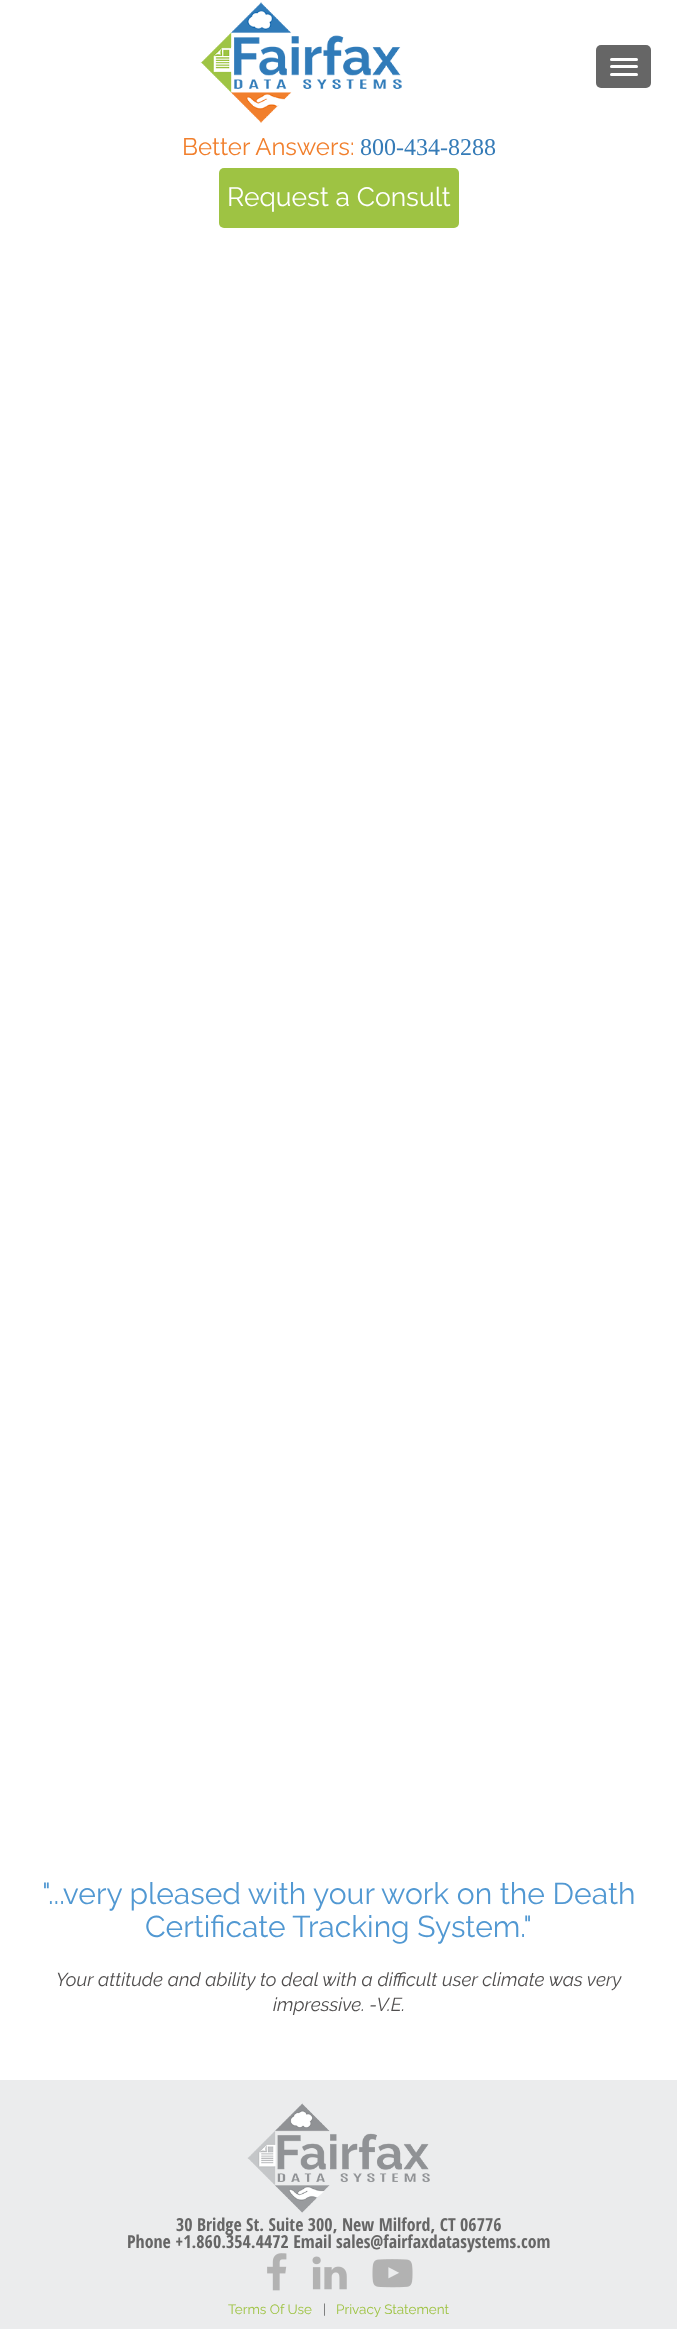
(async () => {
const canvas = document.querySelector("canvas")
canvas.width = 677
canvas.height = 2329
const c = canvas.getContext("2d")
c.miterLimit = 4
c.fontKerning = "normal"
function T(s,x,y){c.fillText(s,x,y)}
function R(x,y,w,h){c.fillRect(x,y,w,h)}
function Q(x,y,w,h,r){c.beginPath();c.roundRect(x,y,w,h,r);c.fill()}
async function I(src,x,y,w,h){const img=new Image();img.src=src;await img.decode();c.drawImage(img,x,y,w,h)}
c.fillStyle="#fff"
R(0,0,677,2329)
await I("1.png",200,2,202,121)
c.fillStyle="#666"
Q(596,45,55,43,5)
c.fillStyle="#fff"
Q(610,58,28,3,1.5)
Q(610,65,28,3,1.5)
Q(610,73,28,3,1.5)
c.font="24px Raleway"
c.fillStyle="#f17f2c"
T("Better Answers:",182,155)
c.font="24px Liberation Serif"
c.fillStyle="#357bb7"
T("800-434-8288",360,155)
c.fillStyle="#9ec343"
Q(219,168,240,60,5)
c.font="26.5px Raleway"
c.fillStyle="#fff"
T("Request a Consult",227,206)
c.font="30px Raleway"
c.fillStyle="#5198d2"
T("\"...very pleased with your work on the Death",42,1904)
T("Certificate Tracking System.\"",145,1937)
c.font="italic 18.75px Raleway"
c.fillStyle="#504e4e"
T("Your attitude and ability to deal with a difficult user climate was very",56,1986)
T("impressive. -V.E.",273,2011)
c.fillStyle="#ebeced"
R(0,2080,677,249)
await I("2.png",247,2103,183,110)
c.font="bold 17.9px Open Sans Condensed"
c.fillStyle="#666"
T("30 Bridge St. Suite 300, New Milford, CT 06776",176,2231)
T("Phone +1.860.354.4472 Email sales@fairfaxdatasystems.com",127,2248)
await I("3.png",267,2253,20,38)
await I("4.png",312,2256,35,34)
await I("5.png",372,2259,41,29)
c.font="13.5px Raleway"
c.fillStyle="#9ec343"
T("Terms Of Use",228,2314)
c.fillStyle="#666"
T("|",323,2314)
c.fillStyle="#9ec343"
T("Privacy Statement",336,2314)
})()
